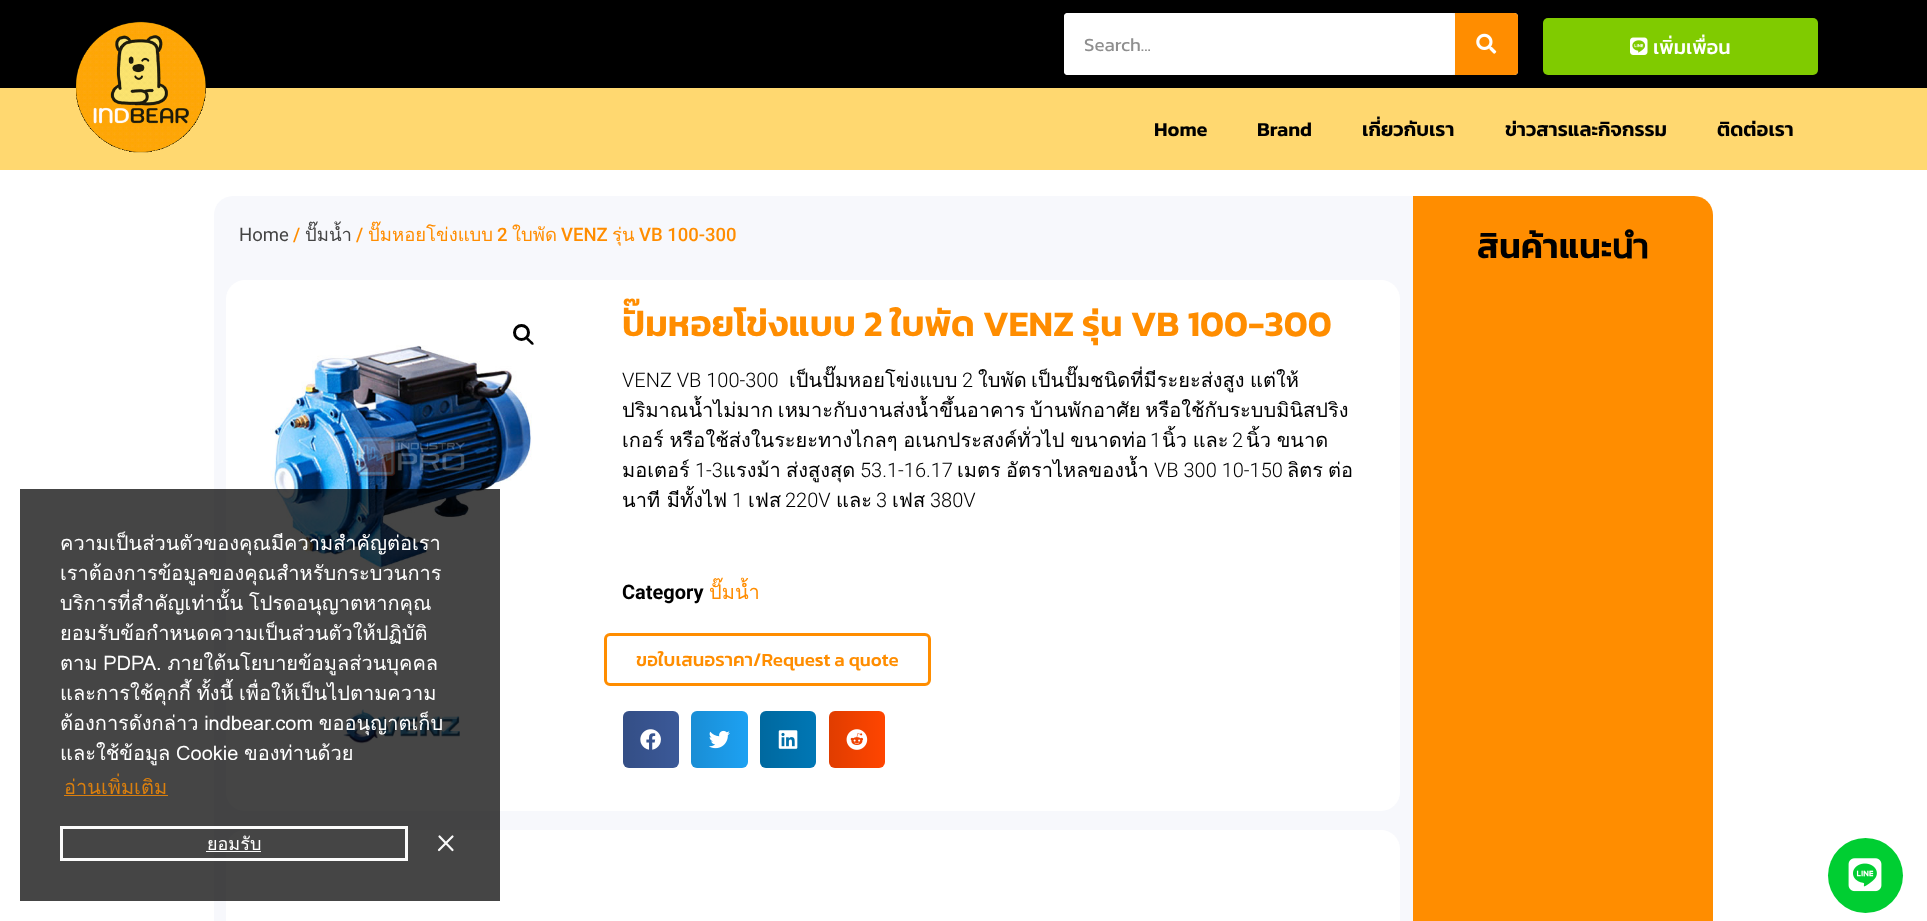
(async () => {
const canvas = document.querySelector("canvas")
canvas.width = 1927
canvas.height = 921
const c = canvas.getContext("2d")
c.miterLimit = 4
c.fontKerning = "normal"
function T(s,x,y){c.fillText(s,x,y)}
function R(x,y,w,h){c.fillRect(x,y,w,h)}
function Q(x,y,w,h,r){c.beginPath();c.roundRect(x,y,w,h,r);c.fill()}
async function I(src,x,y,w,h){const img=new Image();img.src=src;await img.decode();c.drawImage(img,x,y,w,h)}
let gradient, path
c.fillStyle="#fff"
R(0,0,1927,921)
c.fillStyle="#000"
R(0,0,1927,88)
c.fillStyle="#ffd870"
R(0,88,1927,82)
await I("1.png",75,21,131,132)
c.fillStyle="#f1f2f3"
Q(1064,13,454,62,4)
c.fillStyle="#fff"
Q(1064,13,391,62,4)
c.font="18.75px Kanit"
c.fillStyle="#8f8f8f"
T("Search...",1084,51)
c.fillStyle="#ff8d00"
c.beginPath()
c.roundRect(1455,13,63,62,[0,4,4,0])
c.fill()
await I("2.png",1476,33,21,21)
c.fillStyle="#80cb00"
Q(1543,18,275,57,5)
await I("3.png",1630,37,18,18)
c.font="500 20px Kanit"
c.fillStyle="#fff"
T("เพิ่มเพื่อน",1653,54)
c.font="600 20px Kanit"
c.fillStyle="#000"
T("Home",1154,136)
T("Brand",1257,136)
T("เกี่ยวกับเรา",1362,136)
T("ข่าวสารและกิจกรรม",1505,136)
T("ติดต่อเรา",1717,136)
c.fillStyle="#f7f8fc"
path = new Path2D("M233 196h1180v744h-1180c-10.5 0-19-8.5-19-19v-706c0-10.5 8.5-19 19-19z")
c.fill(path)
c.font="18.5px Roboto"
c.fillStyle="#444"
T("Home",239,241)
c.font="500 18.5px Roboto"
c.fillStyle="#ff8d00"
T("/",293,241)
c.font="18.5px Loma"
c.fillStyle="#444"
T("ปั๊มน้ำ",305,241)
c.font="500 18.5px Roboto"
c.fillStyle="#ff8d00"
T("/",356,241)
c.font="18.5px Loma"
T("ปั๊มหอยโข่งแบบ",368,241)
T("ใบพัด",512,241)
T("รุ่น",612,241)
c.font="500 18.5px Roboto"
T("2",497,241)
T("VENZ",561,241)
T("VB 100-300",639,241)
c.fillStyle="#fff"
c.beginPath()
c.roundRect(226,280,353,531,[19,0,0,19])
c.fill()
c.beginPath()
c.arc(521.5,332.5,7,0,7)
c.strokeStyle="#000"
c.lineWidth=3
c.stroke()
c.fillStyle="#000"
path = new Path2D("M526 337.5c1.5-1.5 4 2 4.5 2.5c1 1 4 3 3 4.5c-1.5 1.5-4-2-4.5-2.5c-1-1-4-3-3-4.5z")
c.fill(path)
await I("4.png",270,345,262,225)
await I("5.png",343,709,117,35)
c.fillStyle="#fff"
c.beginPath()
c.roundRect(579,280,821,531,[0,19,19,0])
c.fill()
c.font="600 36.25px Kanit"
c.fillStyle="#ff8d00"
T("ปั๊มหอยโข่งแบบ 2 ใบพัด VENZ รุ่น VB 100-300",622,336)
c.font="300 20px Roboto"
c.fillStyle="#000"
T("VENZ VB 100-300",622,387)
c.font="20px Loma"
T("เป็นปั๊มหอยโข่งแบบ",789,387)
c.font="300 20px Roboto"
T("2",962,387)
c.font="20px Loma"
T("ใบพัด",978,387)
T("เป็นปั๊มชนิดที่มีระยะส่งสูง",1031,387)
T("แต่ให้",1250,387)
c.wordSpacing="-2px"
T("ปริมาณน้ำไม่มาก เหมาะกับงานส่งน้ำขึ้นอาคาร บ้านพักอาศัย หรือใช้กับระบบมินิสปริง",622,417)
c.wordSpacing="-1px"
T("เกอร์ หรือใช้ส่งในระยะทางไกลๆ อเนกประสงค์ทั่วไป ขนาดท่อ",622,447)
c.wordSpacing="0px"
c.font="300 20px Roboto"
T("1",1150,447)
c.wordSpacing="-1px"
c.font="20px Loma"
T("นิ้ว และ",1162,447)
c.wordSpacing="0px"
c.font="300 20px Roboto"
T("2",1232,447)
c.wordSpacing="-1px"
c.font="20px Loma"
T("นิ้ว ขนาด",1246,447)
c.wordSpacing="0px"
T("มอเตอร์",622,477)
c.font="300 20px Roboto"
T("1-3",695,477)
c.font="20px Loma"
T("แรงม้า",723,477)
T("ส่งสูงสุด",786,477)
c.font="300 20px Roboto"
T("53.1-16.17",860,477)
c.font="20px Loma"
T("เมตร",957,477)
T("อัตราไหลของน้ำ",1006,477)
c.font="300 20px Roboto"
T("VB 300 10-150",1154,477)
c.font="20px Loma"
T("ลิตร",1287,477)
T("ต่อ",1328,477)
T("นาที มีทั้งไฟ",622,507)
c.font="300 20px Roboto"
T("1",732,507)
c.font="20px Loma"
T("เฟส",748,507)
c.font="300 20px Roboto"
T("220V",785,507)
c.font="20px Loma"
T("และ",836,507)
c.font="300 20px Roboto"
T("3",876,507)
c.font="20px Loma"
T("เฟส",892,507)
c.font="300 20px Roboto"
T("380V",930,507)
c.font="bold 20px Roboto"
T("Category",622,599)
c.font="20px Loma"
c.fillStyle="#ff8d00"
T("ปั๊มน้ำ",709,599)
c.beginPath()
c.roundRect(605.5,634.5,324,50,4.5)
c.strokeStyle="#ff8d00"
c.stroke()
c.font="500 18.75px Kanit"
T("ขอใบเสนอราคา/Request a quote",636,666)
c.fillStyle="#3b5998"
Q(623,711,56,57,6)
gradient = c.createLinearGradient(623,739,679,739)
gradient.addColorStop(0,"#0000001f")
gradient.addColorStop(1,"#00000000")
c.fillStyle = gradient
Q(623,711,56,57,6)
await I("6.png",640,729,21,21)
c.fillStyle="#1da1f2"
Q(691,711,57,57,6)
gradient = c.createLinearGradient(691,739,748,739)
gradient.addColorStop(0,"#0000001f")
gradient.addColorStop(1,"#00000000")
c.fillStyle = gradient
Q(691,711,57,57,6)
await I("7.png",709,730,21,19)
c.fillStyle="#0077b5"
Q(760,711,56,57,6)
gradient = c.createLinearGradient(760,739,816,739)
gradient.addColorStop(0,"#0000001f")
gradient.addColorStop(1,"#00000000")
c.fillStyle = gradient
Q(760,711,56,57,6)
await I("8.png",778,730,20,19)
c.fillStyle="#ff4500"
Q(829,711,56,57,6)
gradient = c.createLinearGradient(829,739,885,739)
gradient.addColorStop(0,"#0000001f")
gradient.addColorStop(1,"#00000000")
c.fillStyle = gradient
Q(829,711,56,57,6)
await I("9.png",846,729,22,21)
c.fillStyle="#fff"
Q(226,830,1174,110,19)
c.fillStyle="#ff8d00"
path = new Path2D("M1413 196h281c10.5 0 19 8.5 19 19v706c0 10.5-8.5 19-19 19h-281z")
c.fill(path)
c.font="600 35px Kanit"
c.fillStyle="#000"
T("สินค้าแนะนำ",1477,258)
c.fillStyle="#000000ba"
R(20,489,480,412)
c.font="20px Loma"
c.fillStyle="#fff"
T("ความเป็นส่วนตัวของคุณมีความสำคัญต่อเรา",60,550)
T("เราต้องการข้อมูลของคุณสำหรับกระบวนการ",60,580)
c.wordSpacing="-1px"
T("บริการที่สำคัญเท่านั้น โปรดอนุญาตหากคุณ",60,610)
c.wordSpacing="0px"
T("ยอมรับข้อกำหนดความเป็นส่วนตัวให้ปฏิบัติ",60,640)
c.wordSpacing="-1px"
T("ตาม PDPA. ภายใต้นโยบายข้อมูลส่วนบุคคล",60,670)
T("และการใช้คุกกี้ ทั้งนี้ เพื่อให้เป็นไปตามความ",60,700)
T("ต้องการดังกล่าว indbear.com ขออนุญาตเก็บ",60,730)
T("และใช้ข้อมูล Cookie ของท่านด้วย",60,760)
c.wordSpacing="0px"
c.fillStyle="#da7f0e"
T("อ่านเพิ่มเติม",64,794)
R(64,795,104,1)
c.strokeStyle="#fbfbfb"
c.strokeRect(61.5,827.5,345,32)
c.font="18px Loma"
c.fillStyle="#fff"
T("ยอมรับ",207,850)
c.fillStyle="#fbfbfb"
R(206,851,55,1)
path = new Path2D("M439 850l13.5-13.5m0 13.5l-13-13.5")
c.lineWidth=2.2
c.lineCap="round"
c.lineJoin="round"
c.stroke(path)
c.fillStyle="#00ce32"
c.beginPath()
c.arc(1865.5,875.5,37.5,0,7)
c.fill()
await I("10.png",1848,858,34,34)
})()
